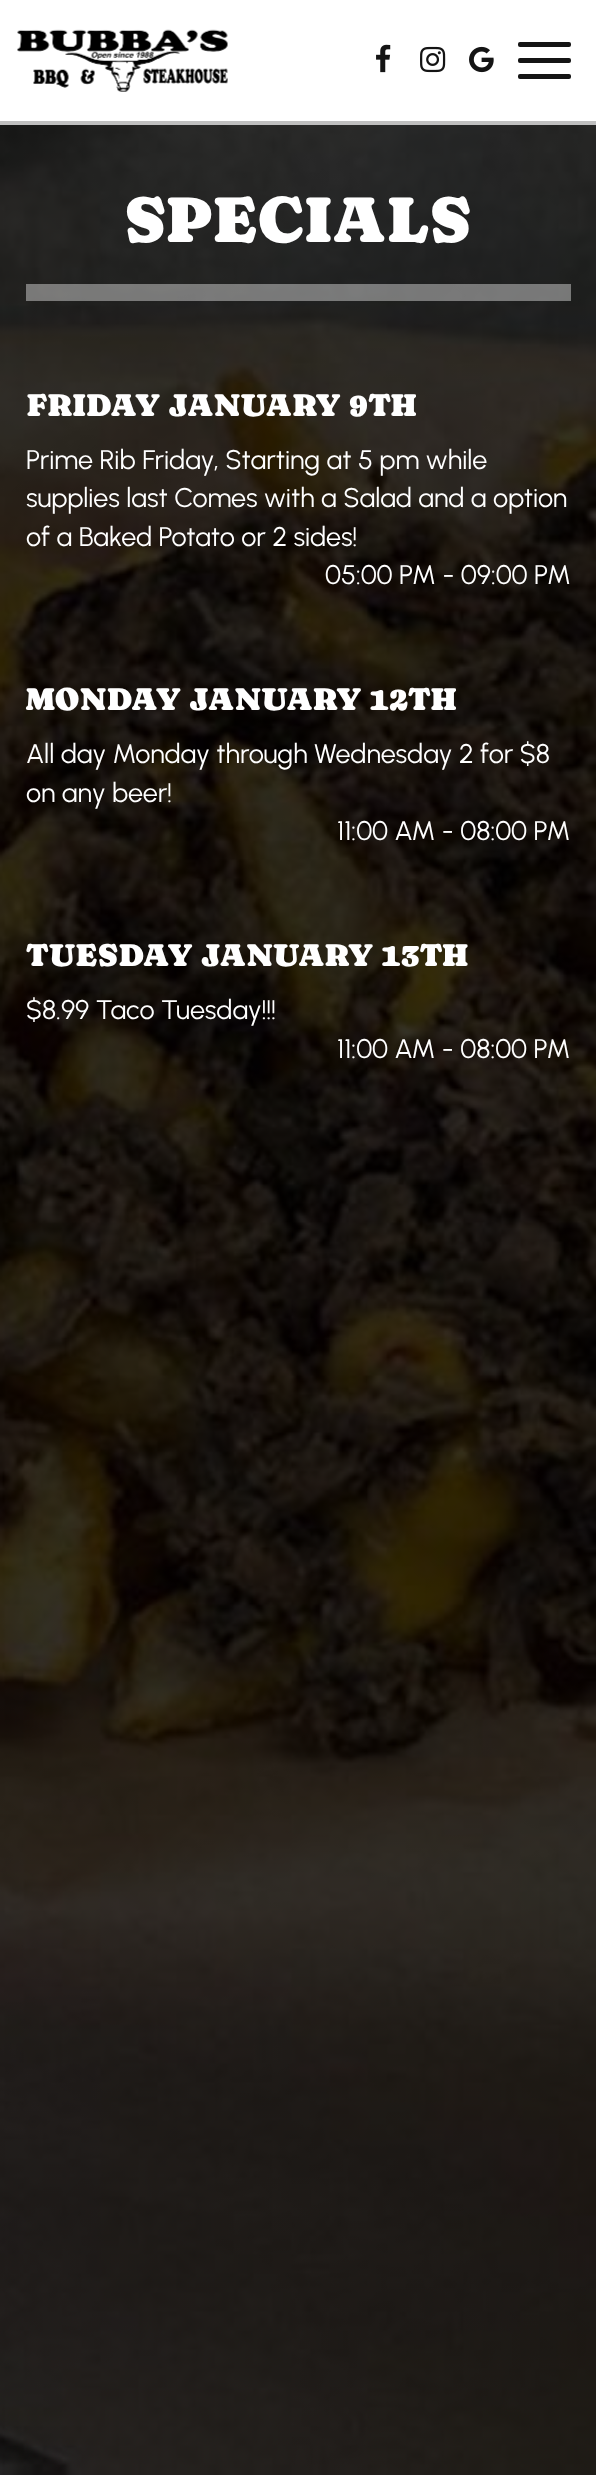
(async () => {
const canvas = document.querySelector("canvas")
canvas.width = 596
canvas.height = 2475
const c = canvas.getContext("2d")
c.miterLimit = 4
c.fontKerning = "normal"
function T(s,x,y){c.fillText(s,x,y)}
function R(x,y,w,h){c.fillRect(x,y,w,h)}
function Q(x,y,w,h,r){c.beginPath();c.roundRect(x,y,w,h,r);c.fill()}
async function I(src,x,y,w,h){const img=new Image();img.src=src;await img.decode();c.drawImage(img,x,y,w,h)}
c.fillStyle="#fff"
R(0,0,596,2475)
await I("1.png",0,125,596,2350)
await I("2.png",17,29,211,63)
c.fillStyle="#bfbfbf"
R(0,121,596,4)
c.fillStyle="#141414"
Q(518,42,53,5,2)
Q(518,58,53,5,2)
Q(518,74,53,5,2)
await I("3.png",376,44,15,29)
await I("4.png",420,46,26,27)
await I("5.png",469,46,25,27)
c.fillStyle="#ffffff66"
R(26,284,545,17)
c.font="66px Caprasimo"
c.fillStyle="#fff"
T("SPECIALS",124,242)
c.font="32.3px Caprasimo"
T("FRIDAY JANUARY 9TH",26,416)
c.font="26.95px Urbanist"
T("Prime Rib Friday, Starting at 5 pm while",26,469)
T("supplies last Comes with a Salad and a option",26,507)
T("of a Baked Potato or 2 sides!",26,546)
T("05:00 PM - 09:00 PM",325,584)
c.font="32.3px Caprasimo"
T("MONDAY JANUARY 12TH",26,710)
c.font="26.95px Urbanist"
T("All day Monday through Wednesday 2 for $8",26,763)
T("on any beer!",26,802)
T("11:00 AM - 08:00 PM",337,840)
c.font="32.3px Caprasimo"
T("TUESDAY JANUARY 13TH",26,966)
c.font="26.95px Urbanist"
T("$8.99 Taco Tuesday!!!",26,1019)
T("11:00 AM - 08:00 PM",337,1058)
})()
